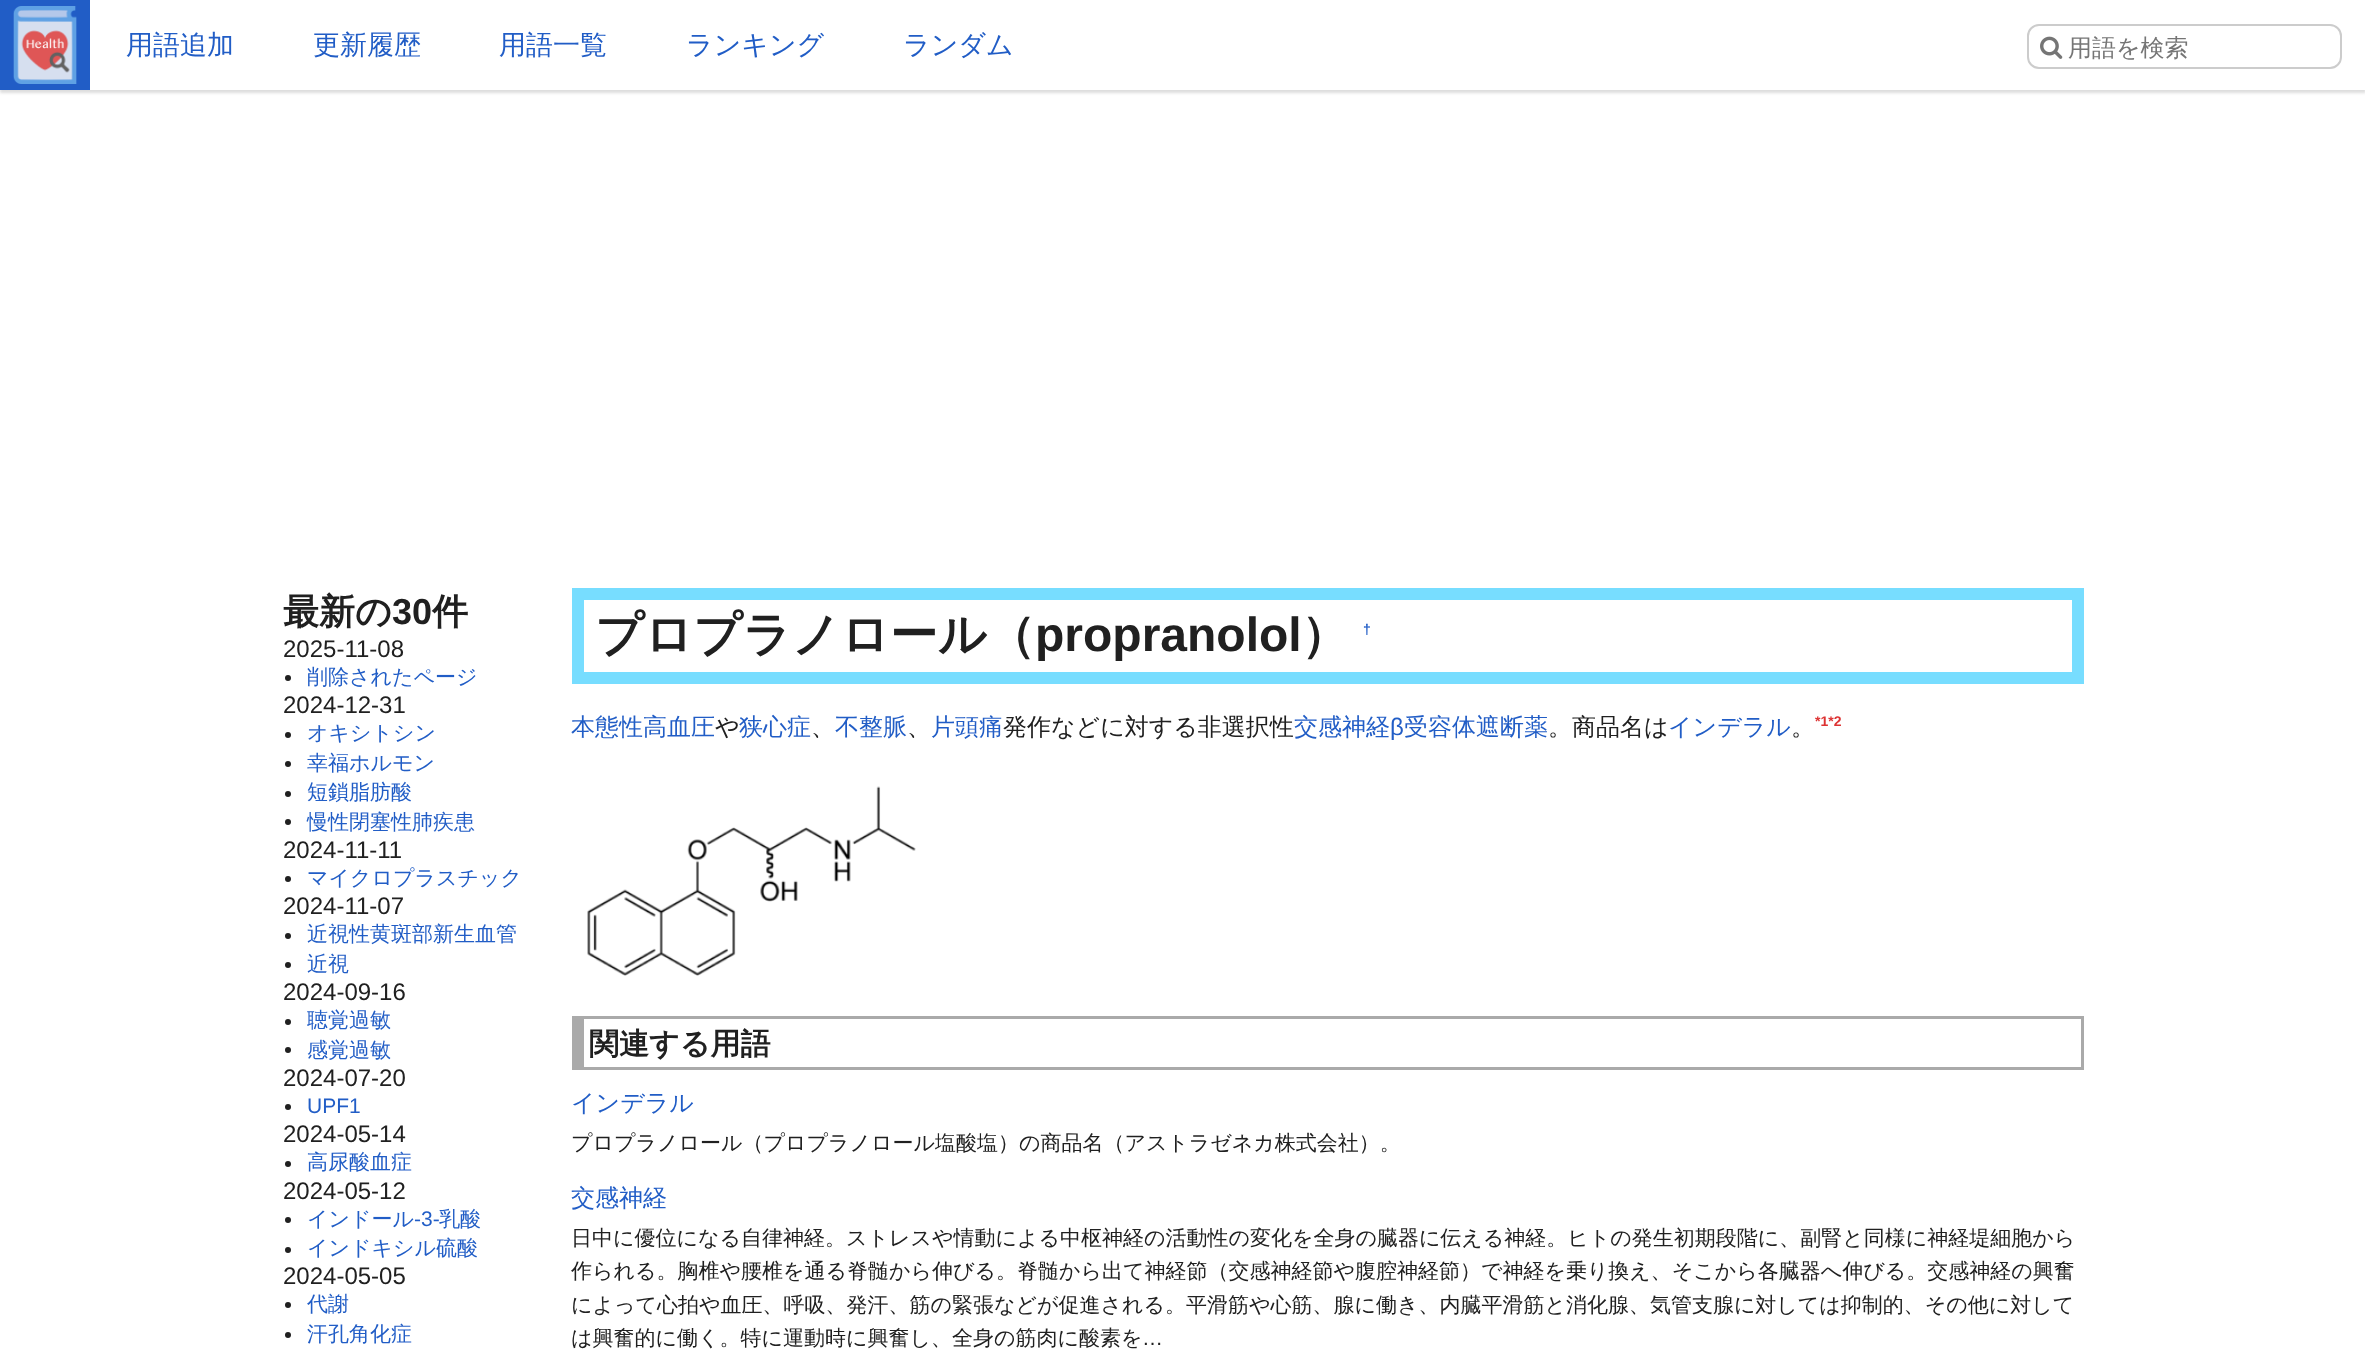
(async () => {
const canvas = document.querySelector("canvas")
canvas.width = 2365
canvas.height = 1359
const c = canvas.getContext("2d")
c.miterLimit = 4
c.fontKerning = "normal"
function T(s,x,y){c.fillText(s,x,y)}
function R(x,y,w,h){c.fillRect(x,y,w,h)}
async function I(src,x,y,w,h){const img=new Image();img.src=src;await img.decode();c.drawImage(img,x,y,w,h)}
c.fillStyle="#fff"
R(0,0,2365,1359)
c.save()
c.beginPath()
c.rect(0,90,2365,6)
c.clip()
c.fillStyle="#ddd"
c.filter="blur(1.5px)"
c.beginPath()
c.rect(0,3,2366,90)
c.fill()
c.filter="none"
c.restore()
c.fillStyle="#215dc6"
R(0,0,90,90)
await I("1.png",13,6,64,78)
c.font="500 27px WenQuanYi Zen Hei"
T("用語追加",126,54)
T("更新履歴",313,54)
T("用語一覧",499,54)
T("ランキング",686,54)
T("ランダム",903,54)
c.beginPath()
c.roundRect(2028,25,313,43,11)
c.strokeStyle="#ccc"
c.lineWidth=2
c.stroke()
await I("2.png",2040,36,23,23)
c.font="500 24px WenQuanYi Zen Hei"
c.fillStyle="#757575"
T("用語を検索",2068,56)
c.font="bold 36px WenQuanYi Zen Hei"
c.fillStyle="#202020"
T("最新の",283,624)
c.font="bold 36px Liberation Sans"
T("30",392,624)
c.font="bold 36px WenQuanYi Zen Hei"
T("件",432,624)
c.font="24px Liberation Sans"
T("2025-11-08",283,657)
c.beginPath()
c.arc(288,678,3,0,7)
c.fill()
c.font="500 21px WenQuanYi Zen Hei"
c.fillStyle="#215dc6"
T("削除されたページ",307,684)
c.font="24px Liberation Sans"
c.fillStyle="#202020"
T("2024-12-31",283,713)
c.beginPath()
c.arc(288,735,3,0,7)
c.fill()
c.font="500 21px WenQuanYi Zen Hei"
c.fillStyle="#215dc6"
T("オキシトシン",307,740)
c.fillStyle="#202020"
c.beginPath()
c.arc(288,764,3,0,7)
c.fill()
c.fillStyle="#215dc6"
T("幸福ホルモン",307,770)
c.fillStyle="#202020"
c.beginPath()
c.arc(288,794,3,0,7)
c.fill()
c.fillStyle="#215dc6"
T("短鎖脂肪酸",307,799)
c.fillStyle="#202020"
c.beginPath()
c.arc(288,822,3,0,7)
c.fill()
c.fillStyle="#215dc6"
T("慢性閉塞性肺疾患",307,829)
c.font="24px Liberation Sans"
c.fillStyle="#202020"
T("2024-11-11",283,858)
c.beginPath()
c.arc(288,879,3,0,7)
c.fill()
c.font="500 21px WenQuanYi Zen Hei"
c.fillStyle="#215dc6"
T("マイクロプラスチック",307,885)
c.font="24px Liberation Sans"
c.fillStyle="#202020"
T("2024-11-07",283,914)
c.beginPath()
c.arc(288,936,3,0,7)
c.fill()
c.font="500 21px WenQuanYi Zen Hei"
c.fillStyle="#215dc6"
T("近視性黄斑部新生血管",307,941)
c.fillStyle="#202020"
c.beginPath()
c.arc(288,965,3,0,7)
c.fill()
c.fillStyle="#215dc6"
T("近視",307,971)
c.font="24px Liberation Sans"
c.fillStyle="#202020"
T("2024-09-16",283,1000)
c.beginPath()
c.arc(288,1022,3,0,7)
c.fill()
c.font="500 21px WenQuanYi Zen Hei"
c.fillStyle="#215dc6"
T("聴覚過敏",307,1027)
c.fillStyle="#202020"
c.beginPath()
c.arc(288,1050,3,0,7)
c.fill()
c.fillStyle="#215dc6"
T("感覚過敏",307,1057)
c.font="24px Liberation Sans"
c.fillStyle="#202020"
T("2024-07-20",283,1086)
c.beginPath()
c.arc(288,1107,3,0,7)
c.fill()
c.font="21px Liberation Sans"
c.fillStyle="#215dc6"
T("UPF1",307,1113)
c.font="24px Liberation Sans"
c.fillStyle="#202020"
T("2024-05-14",283,1142)
c.beginPath()
c.arc(288,1164,3,0,7)
c.fill()
c.font="500 21px WenQuanYi Zen Hei"
c.fillStyle="#215dc6"
T("高尿酸血症",307,1169)
c.font="24px Liberation Sans"
c.fillStyle="#202020"
T("2024-05-12",283,1199)
c.beginPath()
c.arc(288,1220,3,0,7)
c.fill()
c.font="500 21px WenQuanYi Zen Hei"
c.fillStyle="#215dc6"
T("インドール",307,1226)
c.font="21px Liberation Sans"
T("-3-",414,1226)
c.font="500 21px WenQuanYi Zen Hei"
T("乳酸",439,1226)
c.fillStyle="#202020"
c.beginPath()
c.arc(288,1250,3,0,7)
c.fill()
c.fillStyle="#215dc6"
T("インドキシル硫酸",307,1255)
c.font="24px Liberation Sans"
c.fillStyle="#202020"
T("2024-05-05",283,1284)
c.beginPath()
c.arc(288,1305,3,0,7)
c.fill()
c.font="500 21px WenQuanYi Zen Hei"
c.fillStyle="#215dc6"
T("代謝",307,1311)
c.fillStyle="#202020"
c.beginPath()
c.arc(288,1335,3,0,7)
c.fill()
c.fillStyle="#215dc6"
T("汗孔角化症",307,1341)
c.strokeStyle="#7df"
c.lineWidth=12
c.strokeRect(578,594,1500,84)
c.font="bold 48px WenQuanYi Zen Hei"
c.fillStyle="#202020"
T("プロプラノロール（",595,651)
c.font="bold 48px Liberation Sans"
T("propranolol",1035,651)
c.font="bold 48px WenQuanYi Zen Hei"
T("）",1301,651)
c.font="bold 14px Liberation Sans"
c.fillStyle="#215dc6"
T("†",1363,634)
c.font="500 24px WenQuanYi Zen Hei"
T("本態性高血圧",571,735)
c.fillStyle="#202020"
T("や",715,735)
c.fillStyle="#215dc6"
T("狭心症",739,735)
c.fillStyle="#202020"
T("、",811,735)
c.fillStyle="#215dc6"
T("不整脈",835,735)
c.fillStyle="#202020"
T("、",907,735)
c.fillStyle="#215dc6"
T("片頭痛",931,735)
c.fillStyle="#202020"
T("発作などに対する非選択性",1003,735)
c.fillStyle="#215dc6"
T("交感神経",1294,735)
c.font="24px Liberation Sans"
T("β",1390,735)
c.font="500 24px WenQuanYi Zen Hei"
T("受容体遮断薬",1404,735)
c.fillStyle="#202020"
T("。商品名は",1548,735)
c.fillStyle="#215dc6"
T("インデラル",1668,735)
c.fillStyle="#202020"
T("。",1791,735)
c.font="bold 14px Liberation Sans"
c.fillStyle="#d33"
T("*1*2",1815,726)
await I("3.png",587,786,329,190)
c.fillStyle="#aaa"
R(584,1016,1500,3)
R(2081,1016,3,54)
R(584,1067,1500,3)
R(572,1016,12,54)
c.font="bold 30px WenQuanYi Zen Hei"
c.fillStyle="#202020"
T("関連する用語",589,1054)
c.font="500 24px WenQuanYi Zen Hei"
c.fillStyle="#215dc6"
T("インデラル",571,1111)
c.font="500 21px WenQuanYi Zen Hei"
c.fillStyle="#202020"
T("プロプラノロール（プロプラノロール塩酸塩）の商品名（アストラゼネカ株式会社）。",571,1150)
c.font="500 24px WenQuanYi Zen Hei"
c.fillStyle="#215dc6"
T("交感神経",571,1206)
c.font="500 21px WenQuanYi Zen Hei"
c.fillStyle="#202020"
T("日中に優位になる自律神経。ストレスや情動による中枢神経の活動性の変化を全身の臓器に伝える神経。ヒトの発生初期段階に、副腎と同様に神経堤細胞から",571,1245)
T("作られる。胸椎や腰椎を通る脊髄から伸びる。脊髄から出て神経節（交感神経節や腹腔神経節）で神経を乗り換え、そこから各臓器へ伸びる。交感神経の興奮",571,1278)
T("によって心拍や血圧、呼吸、発汗、筋の緊張などが促進される。平滑筋や心筋、腺に働き、内臓平滑筋と消化腺、気管支腺に対しては抑制的、その他に対して",571,1312)
T("は興奮的に働く。特に運動時に興奮し、全身の筋肉に酸素を",571,1345)
c.font="21px Liberation Sans"
T("…",1142,1345)
})()
